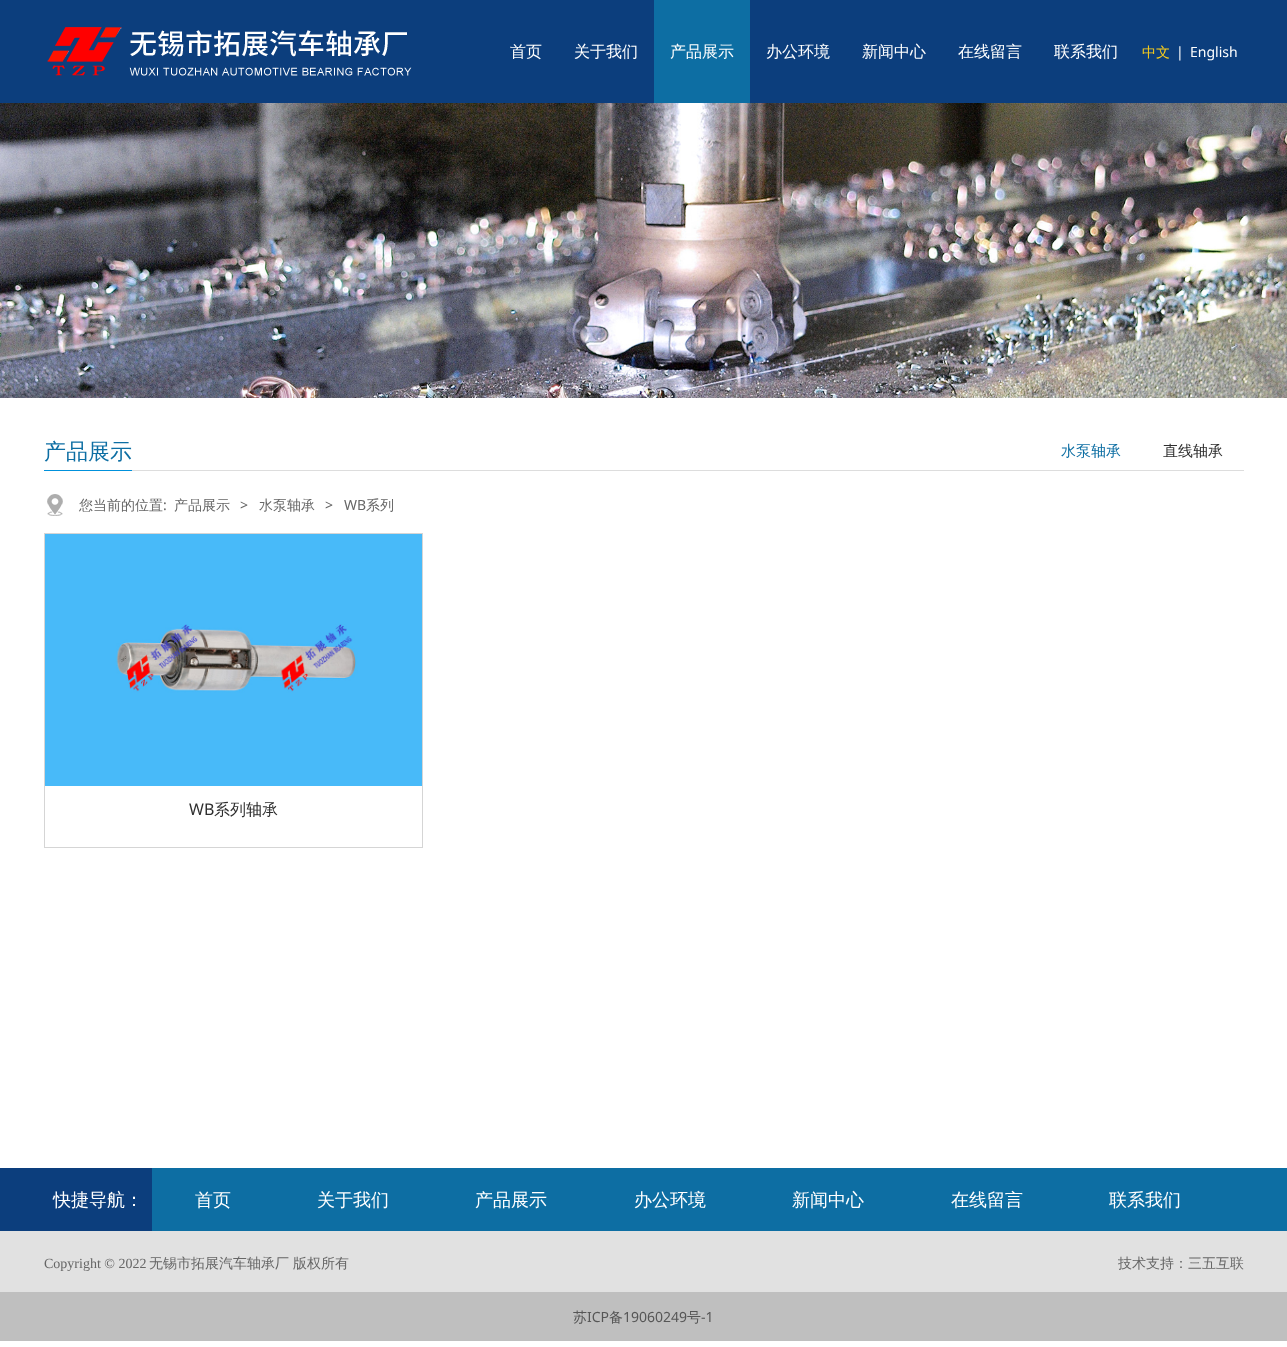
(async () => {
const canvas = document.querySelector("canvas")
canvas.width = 1287
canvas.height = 1347
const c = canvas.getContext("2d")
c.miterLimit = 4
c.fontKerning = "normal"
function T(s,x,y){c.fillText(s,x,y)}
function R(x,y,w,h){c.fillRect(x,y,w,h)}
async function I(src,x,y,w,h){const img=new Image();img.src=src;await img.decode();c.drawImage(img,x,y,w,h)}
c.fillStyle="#fff"
R(0,0,1287,1347)
c.fillStyle="#0c3e7d"
R(0,0,1287,103)
await I("1.png",47,27,365,49)
c.font="500 16px WenQuanYi Zen Hei"
c.fillStyle="#fff"
T("首页",510,57)
T("关于我们",574,57)
c.fillStyle="#0d6ea3"
R(654,0,96,103)
c.fillStyle="#fff"
T("产品展示",670,57)
T("办公环境",766,57)
T("新闻中心",862,57)
T("在线留言",958,57)
T("联系我们",1054,57)
c.font="500 14px WenQuanYi Zen Hei"
c.fillStyle="#fbce1a"
T("中文",1142,57)
c.font="14px Noto Sans"
c.fillStyle="#fff"
T("|",1176,57)
T("English",1190,57)
await I("2.png",0,103,1287,295)
c.fillStyle="#ddd"
R(132,470,1112,1)
c.fillStyle="#0091dc"
R(44,470,88,1)
c.font="500 22px WenQuanYi Zen Hei"
c.fillStyle="#0d6ea3"
T("产品展示",44,459)
c.font="500 15px WenQuanYi Zen Hei"
T("水泵轴承",1061,456)
c.fillStyle="#2f2f2f"
T("直线轴承",1163,456)
await I("3.png",47,494,16,22)
c.font="500 14px WenQuanYi Zen Hei"
c.fillStyle="#666"
T("您当前的位置",79,510)
c.font="14px Noto Sans"
T(":",163,510)
c.font="500 14px WenQuanYi Zen Hei"
T("产品展示",174,510)
c.font="14px Noto Sans"
T(">",240,510)
c.font="500 14px WenQuanYi Zen Hei"
T("水泵轴承",259,510)
c.font="14px Noto Sans"
T(">",325,510)
T("WB",344,510)
c.font="500 14px WenQuanYi Zen Hei"
T("系列",366,510)
c.strokeStyle="#d5d5d5"
c.strokeRect(44.5,533.5,378,314)
await I("4.png",45,534,377,252)
c.font="16px Noto Sans"
c.fillStyle="#2f2f2f"
T("WB",189,815)
c.font="500 16px WenQuanYi Zen Hei"
T("系列轴承",214,815)
c.fillStyle="#e1e1e1"
R(0,1231,1287,61)
c.fillStyle="#0c3e7d"
R(0,1168,152,63)
c.fillStyle="#0d6ea3"
R(152,1168,1135,63)
c.font="500 18px WenQuanYi Zen Hei"
c.fillStyle="#fff"
T("快捷导航：",53,1206)
T("首页",195,1206)
T("关于我们",317,1206)
T("产品展示",475,1206)
T("办公环境",634,1206)
T("新闻中心",792,1206)
T("在线留言",951,1206)
T("联系我们",1109,1206)
c.font="14px Liberation Serif"
c.fillStyle="#666"
T("Copyright © 2022",44,1268)
c.font="500 14px WenQuanYi Zen Hei"
T("无锡市拓展汽车轴承厂",149,1268)
T("版权所有",293,1268)
T("技术支持：三五互联",1118,1268)
c.fillStyle="#bfbfbf"
R(0,1292,1287,49)
c.fillStyle="#565656"
T("苏",573,1322)
c.font="14px Noto Sans"
T("ICP",587,1322)
c.font="500 14px WenQuanYi Zen Hei"
T("备",609,1322)
c.font="14px Noto Sans"
T("19060249",623,1322)
c.font="500 14px WenQuanYi Zen Hei"
T("号",687,1322)
c.font="14px Noto Sans"
T("-1",701,1322)
})()
